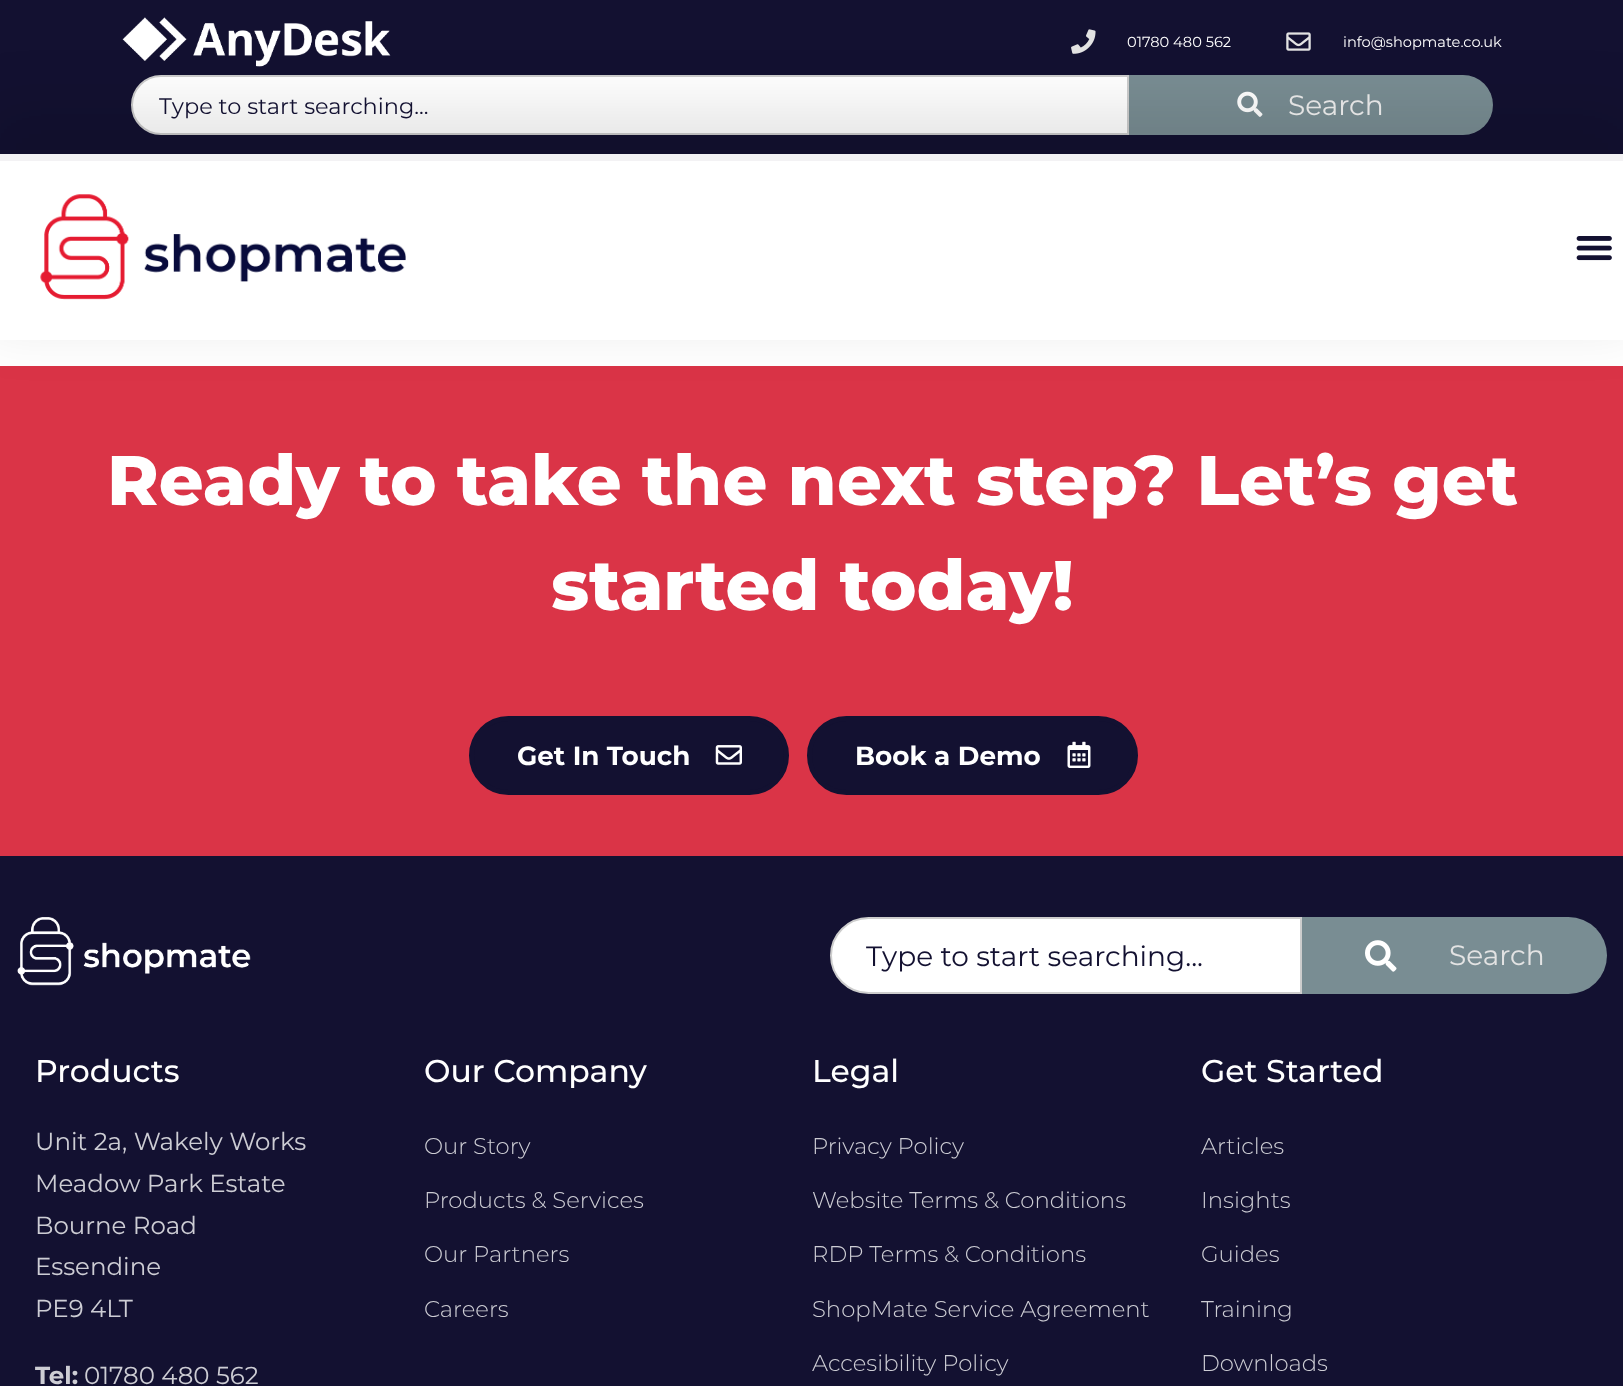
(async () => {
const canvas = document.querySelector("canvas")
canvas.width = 1623
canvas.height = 1386
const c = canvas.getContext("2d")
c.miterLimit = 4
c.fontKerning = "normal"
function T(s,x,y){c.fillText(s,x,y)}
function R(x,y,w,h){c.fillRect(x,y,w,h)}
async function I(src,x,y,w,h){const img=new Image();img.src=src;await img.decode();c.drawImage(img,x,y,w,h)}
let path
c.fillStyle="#fff"
R(0,0,1623,1386)
c.fillStyle="#131131"
R(0,0,1623,161)
await I("3.png",122,17,269,50)
await I("4.png",1071,29,25,25)
await I("5.png",1286,32,25,19)
c.fillStyle="#fff"
c.beginPath()
c.roundRect(132,76,996,58,[29,0,0,29])
c.fill()
c.strokeStyle="#cdcdcd"
c.lineWidth=2
c.stroke()
c.fillStyle="#798d93"
c.beginPath()
c.roundRect(1129,75,364,60,[0,30,30,0])
c.fill()
await I("6.png",1237,91,26,26)
c.fillStyle="#da3447"
R(0,366,1623,490)
c.save()
path = new Path2D("M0 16h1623v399h-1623zm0 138h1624v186h-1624z")
c.clip(path,"evenodd")
c.fillStyle="#0000001a"
c.filter="blur(30px)"
c.beginPath()
c.rect(-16,107,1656,217)
c.fill()
c.filter="none"
c.restore()
c.fillStyle="#fffffff2"
R(0,154,1623,186)
await I("1.png",40,194,366,106)
await I("2.png",1576,236,36,25)
c.font="14.6px Montserrat"
c.fillStyle="#fff"
T("01780 480 562",1127,47)
T("info@shopmate.co.uk",1343,47)
c.font="22.4px Montserrat"
c.fillStyle="#131131"
T("Type to start searching...",159,114)
c.font="28px Montserrat"
c.fillStyle="#e3e3e3"
T("Search",1288,115)
c.font="800 70px Montserrat"
c.fillStyle="#fff"
T("Ready to take the next step? Let’s get",107,505)
T("started today!",551,610)
c.fillStyle="#131131"
c.beginPath()
c.roundRect(471.5,718.5,315,74,37)
c.fill()
c.strokeStyle="#131131"
c.lineWidth=5
c.stroke()
c.font="bold 26.25px Montserrat"
c.fillStyle="#fff"
T("Get In Touch",517,765)
await I("7.png",715,745,27,20)
c.fillStyle="#131131"
c.beginPath()
c.roundRect(809.5,718.5,326,74,37)
c.fill()
c.stroke()
c.fillStyle="#fff"
T("Book a Demo",855,765)
await I("8.png",1067,741,24,27)
c.fillStyle="#131131"
R(0,856,1623,530)
await I("9.png",17,917,234,69)
c.fillStyle="#fff"
c.beginPath()
c.roundRect(831,918,470,75,[37.5,0,0,37.5])
c.fill()
c.strokeStyle="#cdcdcd"
c.lineWidth=2
c.stroke()
c.font="28px Montserrat"
c.fillStyle="#131131"
T("Type to start searching...",866,966)
c.fillStyle="#798d93"
c.beginPath()
c.roundRect(1302,917,305,77,[0,38.5,38.5,0])
c.fill()
await I("10.png",1365,940,32,32)
c.fillStyle="#e3e3e3"
T("Search",1449,965)
c.font="500 31.5px Montserrat"
c.fillStyle="#fff"
T("Products",35,1082)
c.font="24.5px Montserrat"
c.fillStyle="#cdcdd4"
T("Unit 2a, Wakely Works",35,1150)
T("Meadow Park Estate",35,1192)
T("Bourne Road",35,1234)
T("Essendine",35,1275)
T("PE9 4LT",35,1317)
c.font="bold 24.5px Montserrat"
T("Tel:",35,1384)
c.font="24.5px Montserrat"
T("01780 480 562",84,1384)
c.font="500 31.5px Montserrat"
c.fillStyle="#fff"
T("Our Company",424,1082)
c.font="300 22.75px Montserrat"
c.fillStyle="#cdcdd4"
T("Our Story",424,1154)
T("Products & Services",424,1208)
T("Our Partners",424,1262)
T("Careers",424,1317)
c.font="500 31.5px Montserrat"
c.fillStyle="#fff"
T("Legal",812,1082)
c.font="300 22.75px Montserrat"
c.fillStyle="#cdcdd4"
T("Privacy Policy",812,1154)
T("Website Terms & Conditions",812,1208)
T("RDP Terms & Conditions",812,1262)
T("ShopMate Service Agreement",812,1317)
T("Accesibility Policy",812,1371)
c.font="500 31.5px Montserrat"
c.fillStyle="#fff"
T("Get Started",1201,1082)
c.font="300 22.75px Montserrat"
c.fillStyle="#cdcdd4"
T("Articles",1201,1154)
T("Insights",1201,1208)
T("Guides",1201,1262)
T("Training",1201,1317)
T("Downloads",1201,1371)
})()
